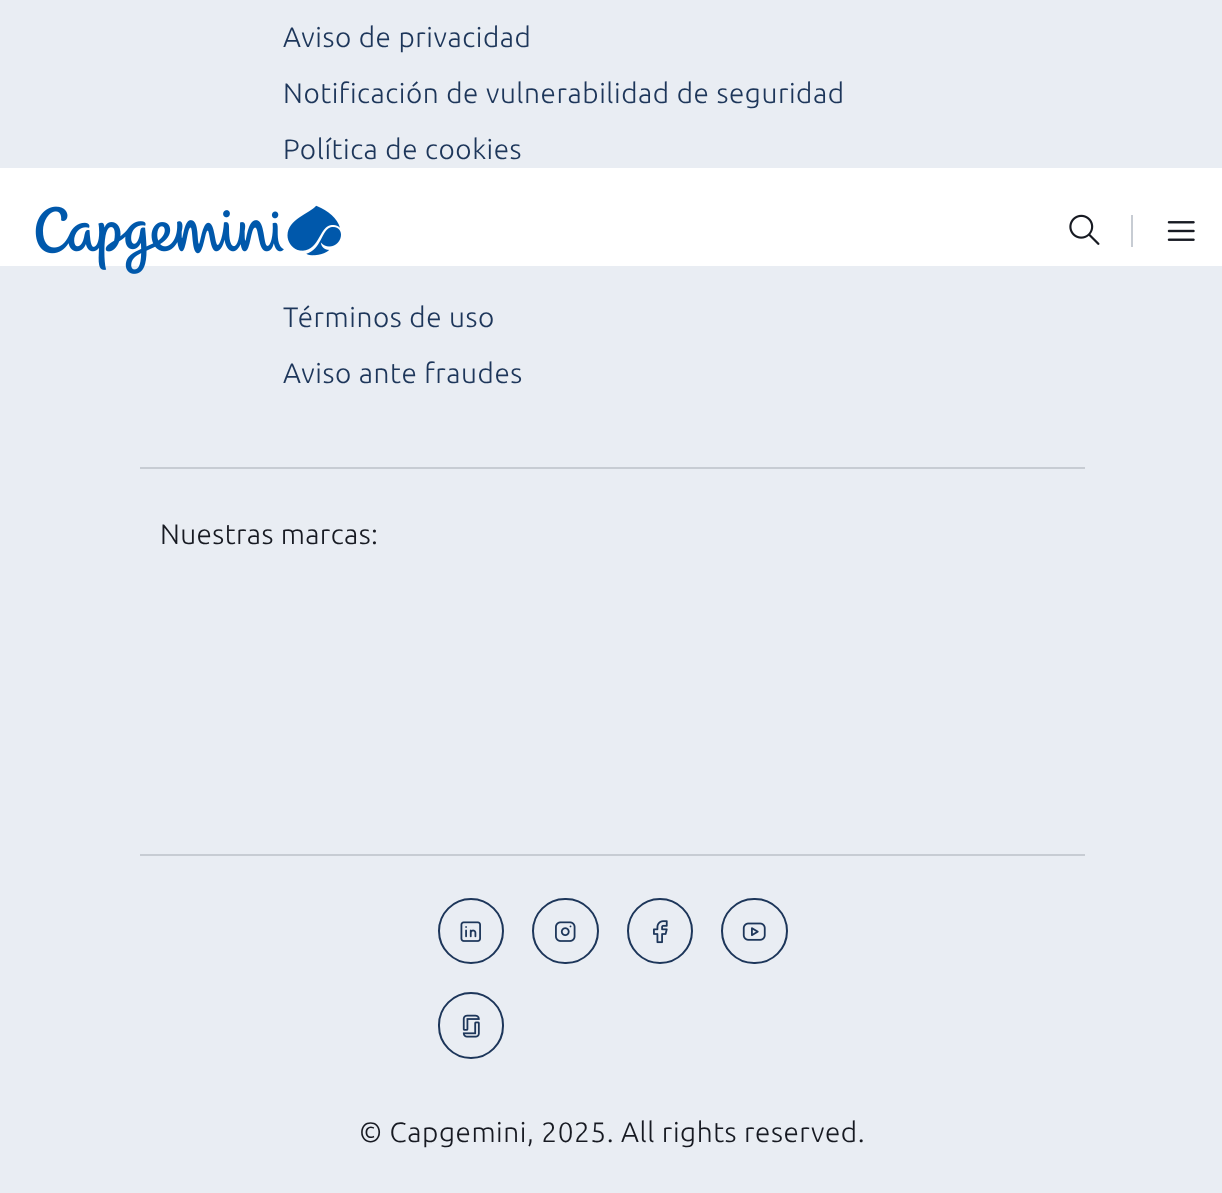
(async () => {
const canvas = document.querySelector("canvas")
canvas.width = 1222
canvas.height = 1193
const c = canvas.getContext("2d")
c.miterLimit = 4
c.fontKerning = "normal"
function T(s,x,y){c.fillText(s,x,y)}
function R(x,y,w,h){c.fillRect(x,y,w,h)}
async function I(src,x,y,w,h){const img=new Image();img.src=src;await img.decode();c.drawImage(img,x,y,w,h)}
c.fillStyle="#e9edf3"
R(0,0,1222,1193)
c.letterSpacing="0.55px"
c.font="300 28px Ubuntu"
c.fillStyle="#1d365a"
T("Aviso de privacidad",283,47)
T("Notificación de vulnerabilidad de seguridad",283,103)
T("Política de cookies",283,159)
T("Términos de uso",283,327)
T("Aviso ante fraudes",283,383)
c.fillStyle="#c7ccd3"
R(140,467,945,2)
R(140,854,945,2)
c.letterSpacing="0.4px"
c.fillStyle="#171a22"
T("Nuestras marcas:",160,544)
c.beginPath()
c.arc(471,931,32,0,7)
c.strokeStyle="#1d365a"
c.lineWidth=2
c.stroke()
await I("1.png",460,921,21,21)
c.beginPath()
c.roundRect(533,899,65,64,32)
c.stroke()
await I("2.png",555,921,21,21)
c.beginPath()
c.arc(660,931,32,0,7)
c.stroke()
await I("3.png",653,920,15,24)
c.beginPath()
c.roundRect(722,899,65,64,32)
c.stroke()
await I("4.png",742,922,24,19)
c.beginPath()
c.roundRect(439,993,64,65,32)
c.stroke()
await I("5.png",462,1014,18,24)
c.letterSpacing="0.55px"
T("© Capgemini, 2025. All rights reserved.",359,1142)
c.fillStyle="#fff"
R(0,168,1222,98)
await I("6.png",35,205,306,69)
c.fillStyle="#c7ccd3"
R(1131,215,2,32)
await I("7.png",1069,214,31,31)
await I("8.png",1167,221,28,20)
})()
